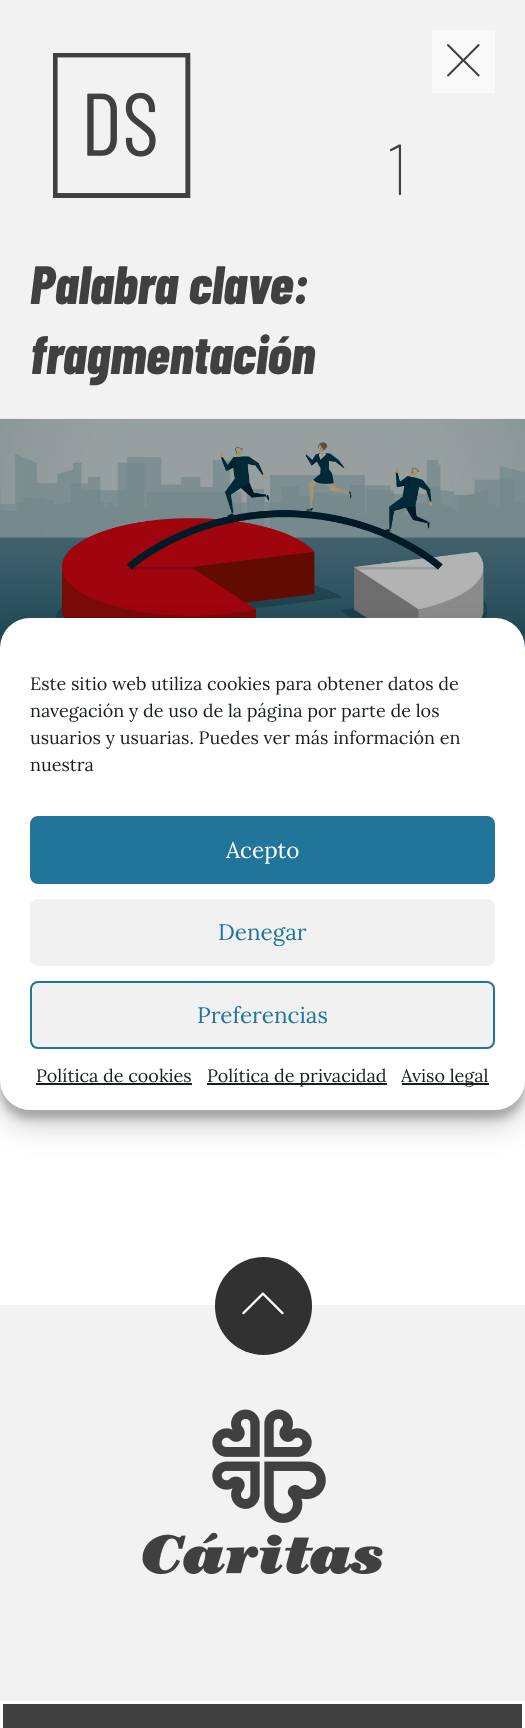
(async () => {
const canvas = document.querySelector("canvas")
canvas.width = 525
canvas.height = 1728
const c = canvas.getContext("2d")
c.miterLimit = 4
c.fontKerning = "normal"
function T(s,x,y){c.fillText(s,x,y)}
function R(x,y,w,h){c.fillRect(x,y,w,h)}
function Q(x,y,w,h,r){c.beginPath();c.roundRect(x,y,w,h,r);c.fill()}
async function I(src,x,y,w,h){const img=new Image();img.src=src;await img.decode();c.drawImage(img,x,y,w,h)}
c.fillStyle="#fff"
R(0,0,525,1728)
c.fillStyle="#f2f2f2"
R(0,0,525,419)
c.fillStyle="#f9f9f9"
R(432,30,63,63)
await I("1.png",447,44,33,33)
await I("2.png",53,53,138,145)
c.font="100 72px Barlow Condensed"
c.fillStyle="#404040"
T("1",389,195)
c.font="italic 800 54px Barlow Condensed"
T("Palabra clave:",30,304)
T("fragmentación",30,374)
await I("3.png",0,418,525,230)
c.fillStyle="#f2f2f2"
R(0,1305,525,396)
c.fillStyle="#313131"
Q(215,1257,97,98,48.5)
await I("4.png",242,1292,42,23)
await I("5.png",142,1409,241,166)
c.fillStyle="#404040"
R(3,1704,519,24)
c.fillStyle="#0000003b"
c.filter="blur(4.5px)"
c.beginPath()
c.roundRect(0,627,525,492,30)
c.fill()
c.filter="none"
c.fillStyle="#00000030"
c.filter="blur(15px)"
c.beginPath()
c.roundRect(0,633,525,492,30)
c.fill()
c.filter="none"
c.fillStyle="#fff"
Q(0,618,525,492,30)
c.font="18px Lora"
c.fillStyle="#191e23"
T("Este sitio web utiliza cookies para obtener datos de",30,690)
T("navegación y de uso de la página por parte de los",30,717)
T("usuarios y usuarias. Puedes ver más información en",30,744)
T("nuestra",30,771)
c.fillStyle="#21759b"
c.beginPath()
c.roundRect(31,817,463,66,7)
c.fill()
c.strokeStyle="#21759b"
c.lineWidth=2
c.stroke()
c.font="22.5px Lora"
c.fillStyle="#fff"
T("Acepto",226,858)
c.fillStyle="#f1f1f1"
c.beginPath()
c.roundRect(31,900,463,65,7)
c.fill()
c.strokeStyle="#f1f1f1"
c.stroke()
c.fillStyle="#21759b"
T("Denegar",218,940)
c.fillStyle="#f1f1f1"
c.beginPath()
c.roundRect(31,982,463,66,7)
c.fill()
c.strokeStyle="#21759b"
c.stroke()
c.fillStyle="#21759b"
T("Preferencias",197,1023)
c.font="18px Lora"
c.fillStyle="#191e23"
T("Política de cookies",36,1082)
R(36,1083,156,2)
R(207,1083,180,2)
T("Política de privacidad",207,1082)
R(402,1083,87,2)
T("Aviso legal",401,1082)
})()
